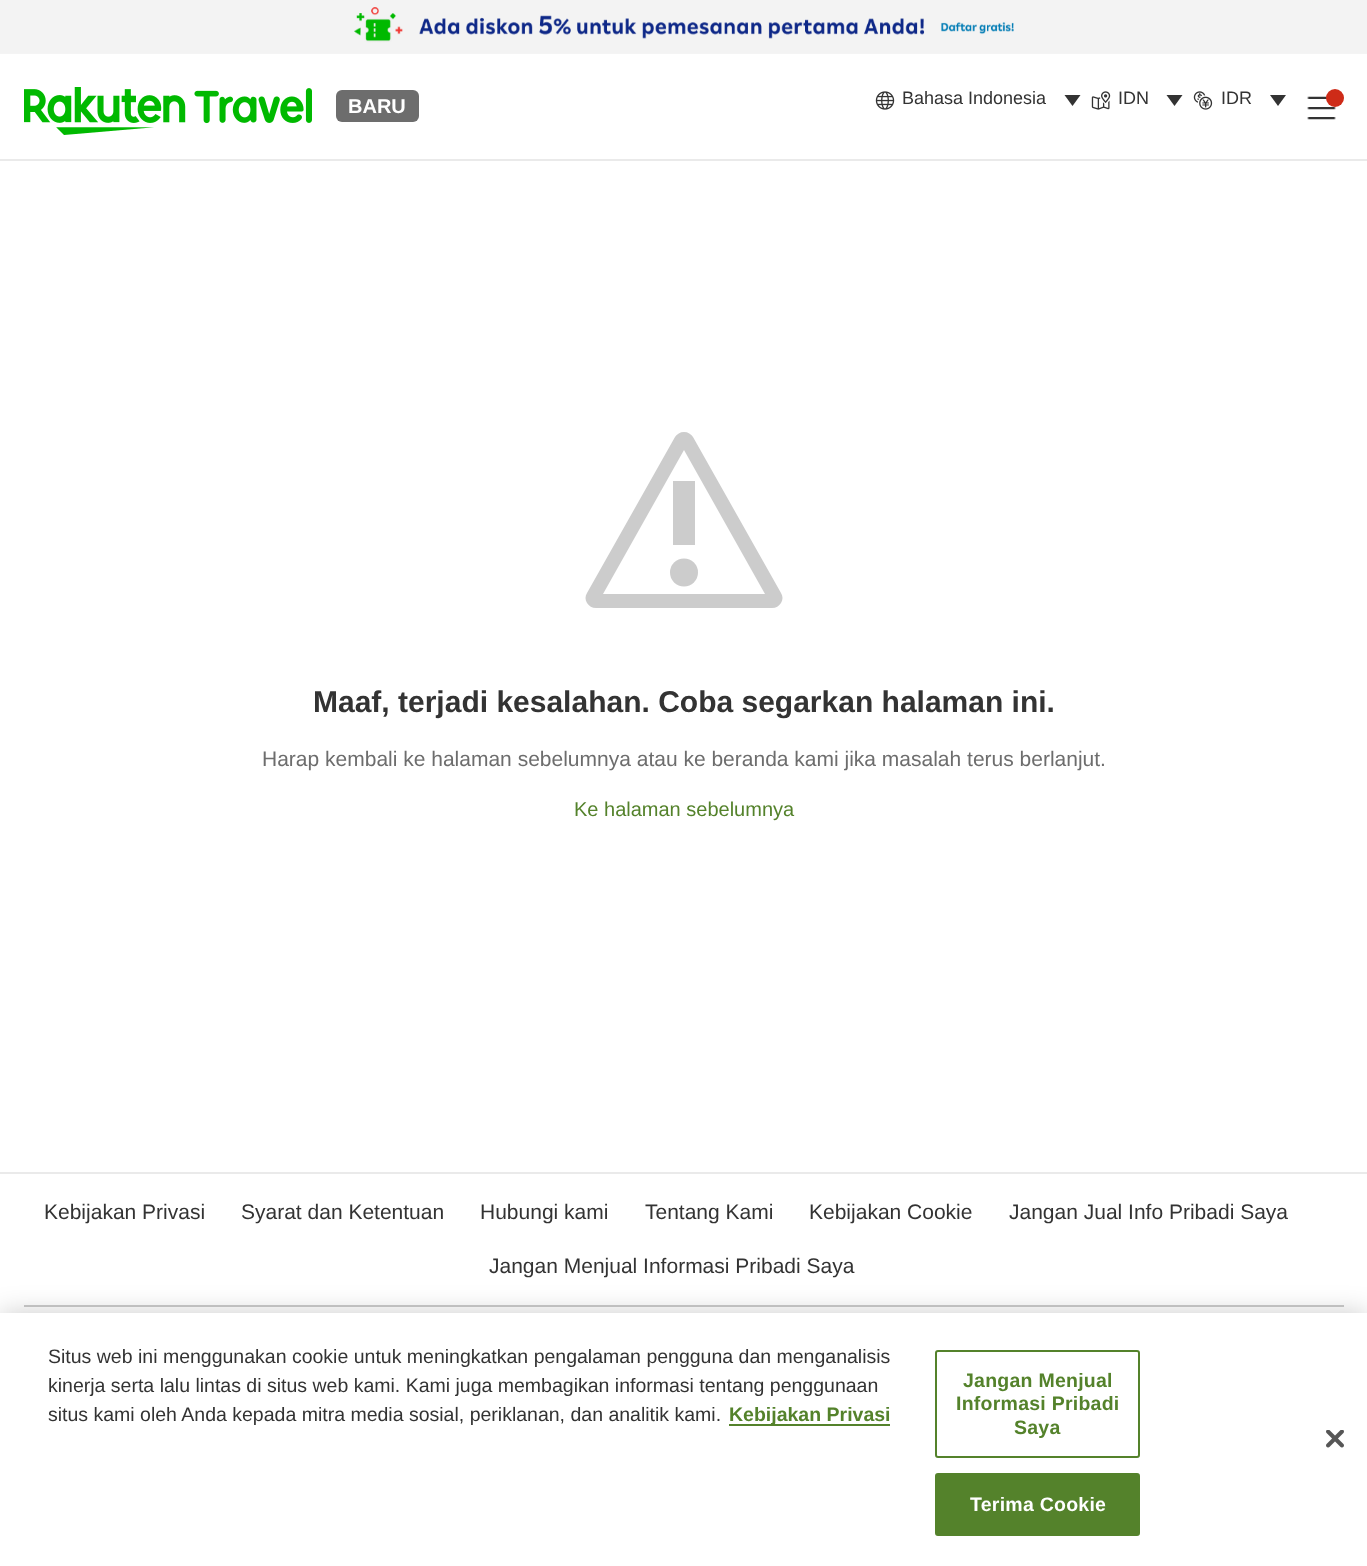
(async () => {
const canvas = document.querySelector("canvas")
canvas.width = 1367
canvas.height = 1566
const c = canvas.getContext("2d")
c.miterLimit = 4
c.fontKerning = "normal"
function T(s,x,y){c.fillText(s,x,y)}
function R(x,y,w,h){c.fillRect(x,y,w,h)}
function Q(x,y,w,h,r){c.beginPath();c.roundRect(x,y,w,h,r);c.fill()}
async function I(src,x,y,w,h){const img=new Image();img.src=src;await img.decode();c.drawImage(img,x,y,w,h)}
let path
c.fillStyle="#fff"
R(0,0,1367,1566)
await I("1.png",0,0,1367,54)
c.fillStyle="#eaeaea"
R(0,159,1367,2)
await I("2.png",24,87,288,48)
await I("3.png",875,91,20,19)
c.font="18px Liberation Sans"
c.fillStyle="#333"
T("Bahasa Indonesia",902,104)
path = new Path2D("M1072.5 106l-8-11h16z")
c.fill(path,"evenodd")
await I("4.png",1091,91,20,19)
T("IDN",1118,104)
path = new Path2D("M1174.5 106l-8-11h16z")
c.fill(path,"evenodd")
await I("5.png",1193,91,20,19)
T("IDR",1221,104)
path = new Path2D("M1278 106l-8-11h16z")
c.fill(path,"evenodd")
await I("6.png",1307,96,29,24)
c.fillStyle="#ce2b18"
c.beginPath()
c.arc(1335,98,9,0,7)
c.fill()
c.fillStyle="#6d6d6d"
Q(336,90,83,32,6)
c.font="bold 20px Liberation Sans"
c.fillStyle="#fff"
T("BARU",348,113)
c.fillStyle="#ccc"
path = new Path2D("M781 593l-88-156c-2-3-5-5-9-5c-4 0-7 2-9 5l-88 156c-2 3-2 7 0 10c2 3 5 5 9 5h176c4 0 7-2 9-5c2-3 2-7 0-10zm-178 1l81-144l81 144z")
c.fill(path,"evenodd")
R(673,481,22,64)
c.beginPath()
c.arc(684,572.5,14,0,7)
c.fill()
c.font="bold 30px Liberation Sans"
c.fillStyle="#333"
T("Maaf, terjadi kesalahan. Coba segarkan halaman ini.",313,712)
c.font="21px Liberation Sans"
c.fillStyle="#6d6d6d"
T("Harap kembali ke halaman sebelumnya atau ke beranda kami jika masalah terus berlanjut.",262,766)
c.font="20px Liberation Sans"
c.fillStyle="#54822b"
T("Ke halaman sebelumnya",574,816)
c.fillStyle="#eaeaea"
R(0,1172,1367,2)
c.fillStyle="#ccc"
R(24,1305,1320,2)
c.font="21px Liberation Sans"
c.fillStyle="#333"
T("Kebijakan Privasi",44,1219)
T("Syarat dan Ketentuan",241,1219)
T("Hubungi kami",480,1219)
T("Tentang Kami",645,1219)
T("Kebijakan Cookie",809,1219)
T("Jangan Jual Info Pribadi Saya",1009,1219)
T("Jangan Menjual Informasi Pribadi Saya",489,1273)
c.fillStyle="#00000033"
c.filter="blur(13.5px)"
c.beginPath()
c.rect(0,1313,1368,253)
c.fill()
c.filter="none"
c.fillStyle="#fff"
R(0,1313,1367,253)
c.font="19.5px Liberation Sans"
c.fillStyle="#333"
T("Situs web ini menggunakan cookie untuk meningkatkan pengalaman pengguna dan menganalisis",48,1363)
T("kinerja serta lalu lintas di situs web kami. Kami juga membagikan informasi tentang penggunaan",48,1392)
T("situs kami oleh Anda kepada mitra media sosial, periklanan, dan analitik kami.",48,1421)
c.fillStyle="#54822b"
R(729,1424,161,2)
c.font="bold 19.5px Liberation Sans"
T("Kebijakan Privasi",729,1421)
c.beginPath()
c.roundRect(936,1351,203,106,2)
c.strokeStyle="#54822b"
c.lineWidth=2
c.stroke()
c.letterSpacing="0.25px"
T("Jangan Menjual",963,1387)
T("Informasi Pribadi",956,1410)
T("Saya",1014,1434)
c.beginPath()
c.roundRect(936,1474,203,61,2)
c.fill()
c.stroke()
c.fillStyle="#fff"
T("Terima Cookie",970,1511)
await I("7.png",1326,1430,18,18)
})()
